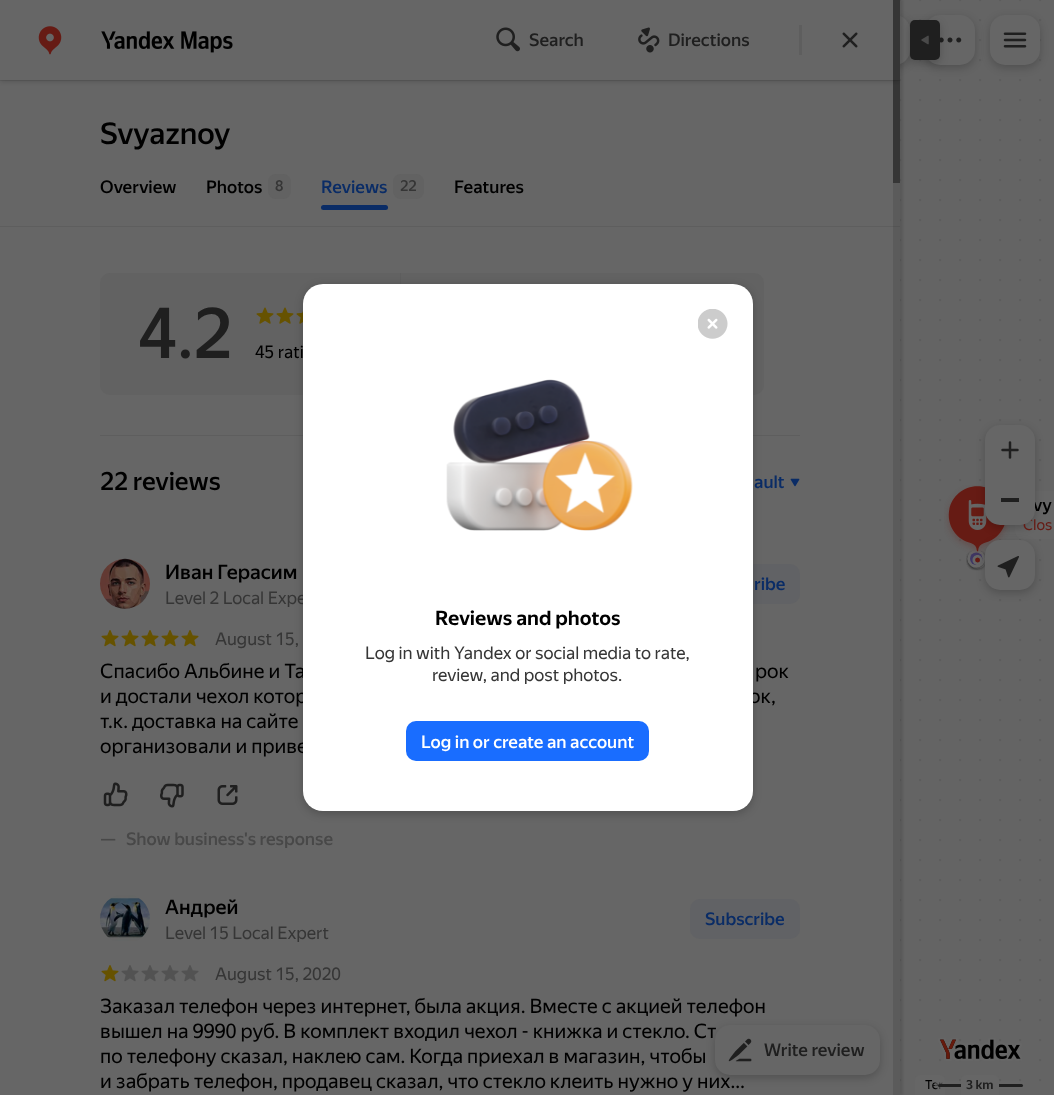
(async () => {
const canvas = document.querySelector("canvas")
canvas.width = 1054
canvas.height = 1095
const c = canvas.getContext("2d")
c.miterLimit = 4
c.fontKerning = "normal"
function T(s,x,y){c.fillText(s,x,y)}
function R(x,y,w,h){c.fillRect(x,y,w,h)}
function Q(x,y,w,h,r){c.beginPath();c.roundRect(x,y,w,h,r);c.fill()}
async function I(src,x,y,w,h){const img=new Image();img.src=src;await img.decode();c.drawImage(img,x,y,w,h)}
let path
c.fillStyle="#fff"
R(0,0,1054,1095)
await I("1.png",900,0,154,1095)
c.fillStyle="#00000033"
c.filter="blur(4px)"
c.beginPath()
c.roundRect(810,18,100,50,15)
c.fill()
c.filter="none"
c.fillStyle="#666"
c.beginPath()
c.roundRect(860,15,50,50,[0,15,15,0])
c.fill()
c.fillStyle="#0000001a"
c.filter="blur(1px)"
c.beginPath()
c.rect(3,0,900,1095)
c.fill()
c.filter="none"
c.fillStyle="#666"
R(0,81,900,1014)
c.fillStyle="#5e5e5e"
R(0,80,900,1)
c.save()
c.beginPath()
c.rect(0,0,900,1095)
c.clip()
c.fillStyle="#00000033"
c.filter="blur(2.5px)"
c.beginPath()
c.rect(0,76,900,5)
c.fill()
c.filter="none"
c.restore()
c.fillStyle="#00000033"
c.filter="blur(4px)"
c.beginPath()
c.roundRect(925,18,50,50,15)
c.fill()
c.filter="none"
c.fillStyle="#666"
Q(925,15,50,50,15)
await I("19.png",940,37,22,6)
c.fillStyle="#00000033"
c.filter="blur(4px)"
c.beginPath()
c.roundRect(910,23,30,40,5)
c.fill()
c.filter="none"
c.fillStyle="#666"
R(0,0,900,80)
await I("2.png",38,26,24,29)
await I("3.png",101,31,132,22)
await I("4.png",496,27,24,25)
c.font="500 17.5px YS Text"
c.fillStyle="#1f1f1f"
T("Search",529,46)
await I("5.png",638,27,22,26)
T("Directions",668,46)
c.fillStyle="#5e5e5e"
R(799,25,3,30)
await I("6.png",842,32,16,16)
c.font="500 30px YS Text"
c.fillStyle="#000"
T("Svyaznoy",100,144)
c.font="500 17.5px YS Text"
T("Overview",100,193)
T("Photos",206,193)
c.fillStyle="#626262"
Q(268,174,23,25,8)
c.font="500 15px YS Text"
c.fillStyle="#363636"
T("8",275,191)
c.font="500 17.5px YS Text"
c.fillStyle="#0a2c66"
T("Reviews",321,193)
c.fillStyle="#626262"
Q(393,174,31,25,8)
c.font="500 15px YS Text"
c.fillStyle="#363636"
T("22",400,191)
c.font="500 17.5px YS Text"
c.fillStyle="#000"
T("Features",454,193)
c.fillStyle="#0a2c66"
Q(321,205,67,5,2.5)
c.fillStyle="#5e5e5e"
R(0,226,900,1)
c.fillStyle="#626262"
c.beginPath()
c.roundRect(100,273,300,122,[10,0,0,10])
c.fill()
c.font="500 70px YS Text"
c.fillStyle="#1f1f1f"
T("4",138,358)
c.font="70px YS Text"
T(".",177,358)
c.font="500 70px YS Text"
T("2",193,358)
await I("7.png",256,307,18,17)
await I("7.png",276,307,18,17)
await I("8.png",296,311,7,13)
c.font="17.5px YS Text"
c.fillStyle="#000"
T("45 rati",255,358)
c.fillStyle="#626262"
c.beginPath()
c.roundRect(400,273,364,122,[0,10,10,0])
c.fill()
c.fillStyle="#5e5e5e"
R(400,273,1,11)
R(100,435,700,1)
c.font="500 25px YS Text"
c.fillStyle="#000"
T("22 reviews",100,490)
c.font="500 17.5px YS Text"
c.fillStyle="#0a2c66"
T("ault",754,488)
await I("9.png",790,478,10,9)
await I("10.png",100,558,50,51)
c.font="500 20px YS Text"
c.fillStyle="#000"
T("Иван Герасим",165,579)
c.font="17.5px YS Text"
c.fillStyle="#363636"
T("Level 2 Local Expe",165,604)
c.fillStyle="#616265"
Q(690,564,110,40,10)
c.font="500 17.5px YS Text"
c.fillStyle="#0a2c66"
T("ribe",754,590)
await I("11.png",101,630,18,17)
await I("11.png",121,630,18,17)
await I("11.png",141,630,18,17)
await I("11.png",161,630,18,17)
await I("11.png",181,630,18,17)
c.font="17.5px YS Text"
c.fillStyle="#363636"
T("August 15,",215,645)
c.font="20px YS Text"
c.fillStyle="#000"
T("Спасибо Альбине и Та",100,678)
T("рок",755,678)
T("и достали чехол котор",100,703)
T("ок,",749,703)
T("т.к. доставка на сайте",100,728)
T("организовали и приве",100,753)
await I("12.png",103,782,25,25)
await I("13.png",160,783,24,25)
await I("14.png",217,785,21,20)
c.font="500 17.5px YS Text"
c.fillStyle="#484848"
T("—",100,845)
T("Show business's response",126,845)
await I("15.png",100,895,50,46)
c.font="500 20px YS Text"
c.fillStyle="#000"
T("Андрей",165,914)
c.font="17.5px YS Text"
c.fillStyle="#363636"
T("Level 15 Local Expert",165,939)
c.fillStyle="#616265"
Q(690,899,110,40,10)
c.font="500 17.5px YS Text"
c.fillStyle="#0a2c66"
T("Subscribe",705,925)
await I("11.png",101,965,18,17)
await I("16.png",121,965,18,17)
await I("16.png",141,965,18,17)
await I("16.png",161,965,18,17)
await I("16.png",181,965,18,17)
c.font="17.5px YS Text"
c.fillStyle="#363636"
T("August 15, 2020",215,980)
c.font="20px YS Text"
c.fillStyle="#000"
T("Заказал телефон через интернет, была акция. Вместе с акцией телефон",100,1013)
T("вышел на 9990 руб. В комплект входил чехол - книжка и стекло. Ст",100,1038)
T("по телефону сказал, наклею сам. Когда приехал в магазин, чтобы",100,1063)
T("и забрать телефон, продавец сказал, что стекло клеить нужно у них…",100,1088)
c.fillStyle="#00000033"
c.filter="blur(4px)"
c.beginPath()
c.roundRect(715,1028,165,50,15)
c.fill()
c.filter="none"
c.fillStyle="#666"
Q(715,1025,165,50,15)
await I("17.png",728,1038,24,24)
c.font="500 17.5px YS Text"
c.fillStyle="#1f1f1f"
T("Write review",764,1056)
c.fillStyle="#0000001a"
R(893,0,7,1095)
c.fillStyle="#00000066"
R(893,0,7,183)
c.fillStyle="#1f1f1f"
Q(910,20,30,40,5)
await I("18.png",921,35,8,10)
c.fillStyle="#00000033"
c.filter="blur(4px)"
c.beginPath()
c.roundRect(990,18,50,50,15)
c.fill()
c.filter="none"
c.fillStyle="#666"
Q(990,15,50,50,15)
await I("20.png",1003,32,24,16)
await I("26.png",966,550,19,20)
await I("27.png",966,551,19,19)
await I("29.png",967,551,18,20)
await I("28.png",966,551,19,19)
await I("30.png",966,552,19,18)
await I("24.png",944,485,66,80)
await I("25.png",968,500,19,30)
c.fillStyle="#666666e6"
path = new Path2D("M1023 491h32v48h-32c-4.5 0-8-3.5-8-8v-32c0-4.5 3.5-8 8-8z")
c.fill(path)
c.fillStyle="#00000033"
c.filter="blur(4px)"
c.beginPath()
c.roundRect(985,428,50,100,15)
c.fill()
c.filter="none"
c.fillStyle="#666"
c.beginPath()
c.roundRect(985,425,50,50,[15,15,0,0])
c.fill()
await I("21.png",1001,441,18,18)
c.fillStyle="#000"
T("vy",1033,511)
c.font="15px YS Text"
c.fillStyle="#661b14"
T("Clos",1023,530)
c.fillStyle="#666"
c.beginPath()
c.roundRect(985,475,50,50,[0,0,15,15])
c.fill()
c.fillStyle="#1f1f1f"
R(1001,498,18,4)
c.fillStyle="#00000033"
c.filter="blur(4px)"
c.beginPath()
c.roundRect(985,543,50,50,15)
c.fill()
c.filter="none"
c.fillStyle="#666"
Q(985,540,50,50,15)
await I("22.png",997,556,22,22)
await I("23.png",938,1038,84,23)
c.beginPath()
c.roundRect(915,1075,30,20,[5,5,0,0])
c.fill()
c.font="12.5px YS Text"
c.fillStyle="#000"
T("Ter",925,1089)
c.fillStyle="#66666699"
Q(935,1081,90,8,4)
c.fillStyle="#1f1f1f"
Q(938,1084,85,3,1.5)
c.fillStyle="#666"
c.beginPath()
c.roundRect(961,1075,38,20,[5,5,0,0])
c.fill()
c.font="bold 12.5px YS Text"
c.fillStyle="#1f1f1f"
T("3 km",966,1089)
c.fillStyle="#00000033"
c.filter="blur(4px)"
c.beginPath()
c.roundRect(303,286,450,528,20)
c.fill()
c.filter="none"
c.fillStyle="#fff"
Q(303,284,450,527,20)
await I("31.png",698,309,30,30)
await I("32.png",446,379,187,152)
c.font="bold 20px YS Text"
c.fillStyle="#000"
T("Reviews and photos",435,625)
c.font="17.5px YS Text"
c.fillStyle="#363636"
T("Log in with Yandex or social media to rate,",365,659)
T("review, and post photos.",432,681)
c.fillStyle="#196dff"
Q(406,721,243,40,10)
c.font="500 17.5px YS Text"
c.fillStyle="#fff"
T("Log in or create an account",421,748)
})()
